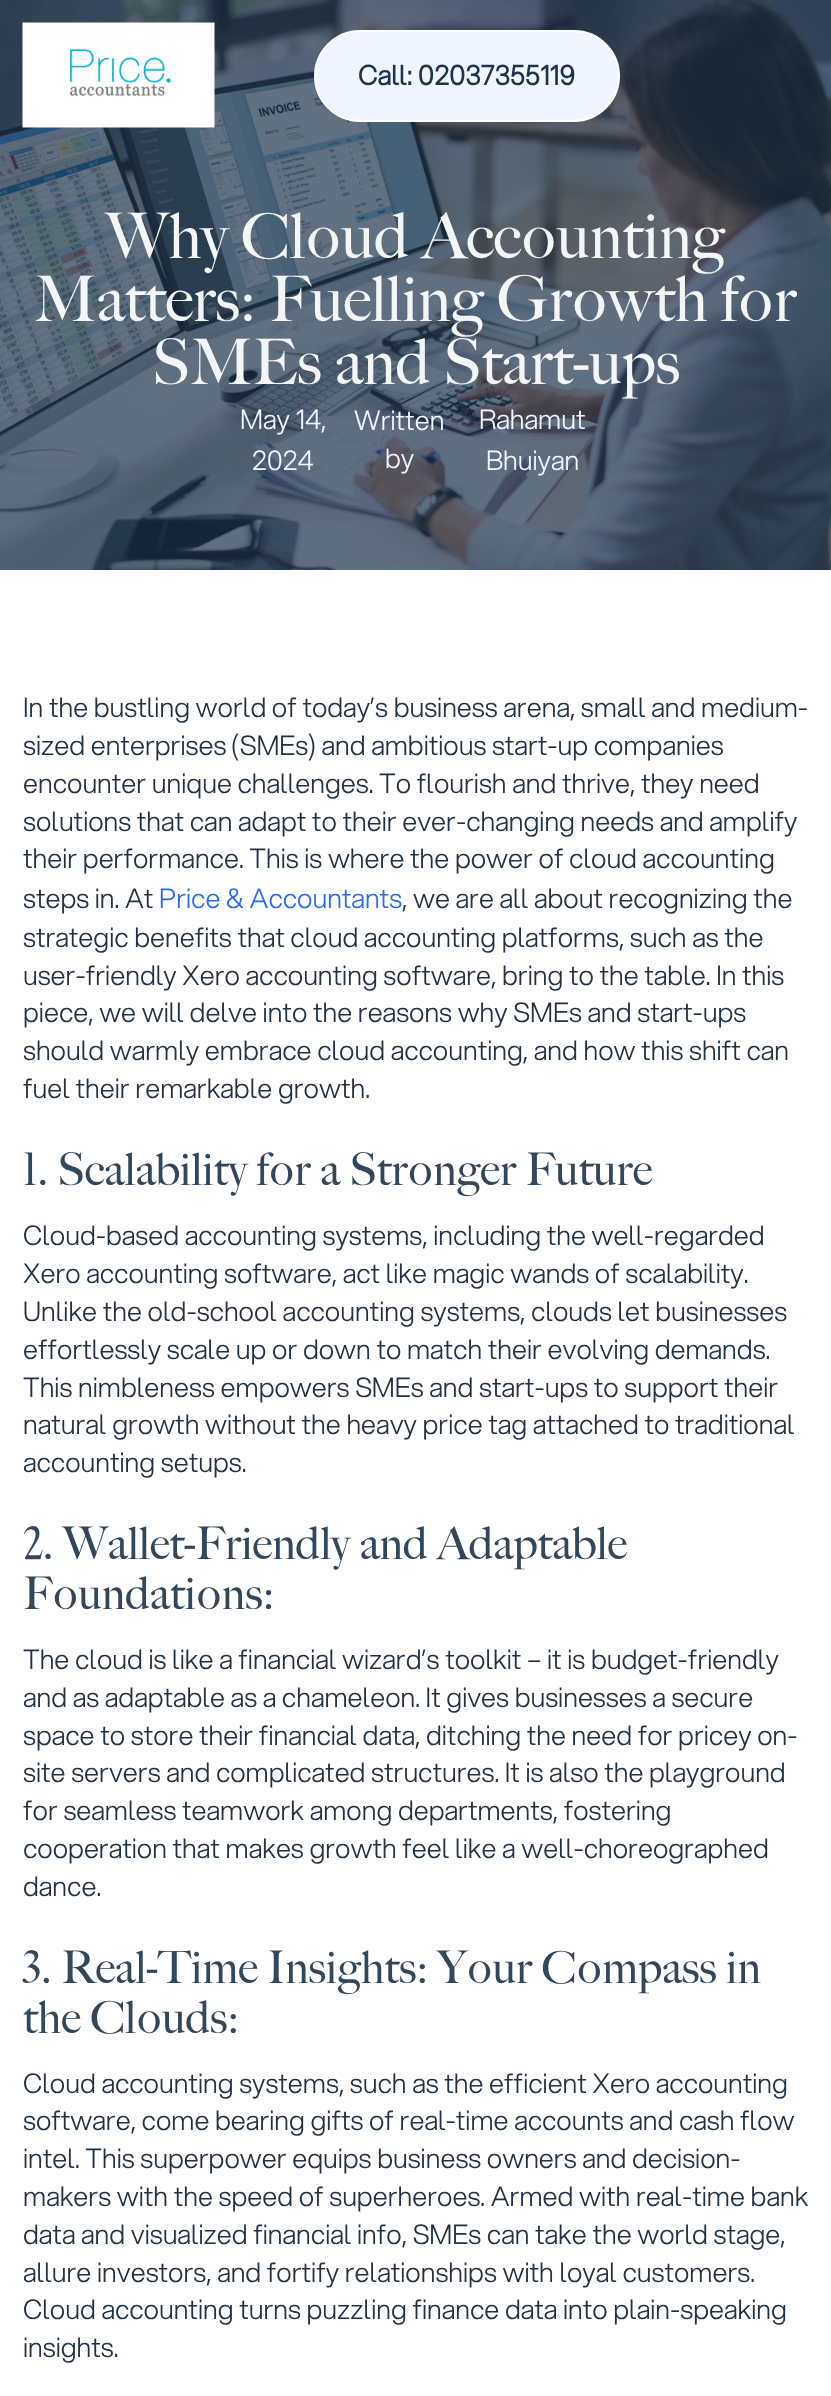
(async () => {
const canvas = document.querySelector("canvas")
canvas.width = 831
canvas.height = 2396
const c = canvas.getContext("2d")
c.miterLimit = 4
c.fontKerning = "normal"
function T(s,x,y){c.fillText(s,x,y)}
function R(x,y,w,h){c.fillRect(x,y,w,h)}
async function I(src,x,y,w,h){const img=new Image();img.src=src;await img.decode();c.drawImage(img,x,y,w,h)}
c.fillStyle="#fff"
R(0,0,831,2396)
await I("2.png",0,0,831,570)
await I("1.png",22,22,193,106)
c.fillStyle="#f0f5ff"
c.beginPath()
c.roundRect(315,31,304,90,45)
c.fill()
c.strokeStyle="#fff"
c.lineWidth=2
c.stroke()
c.letterSpacing="0.25px"
c.font="bold 27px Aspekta"
c.fillStyle="#1e344b"
T("Call: 02037355119",358,85)
c.letterSpacing="0px"
c.font="63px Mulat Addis"
c.fillStyle="#f4f5f6"
T("Why Cloud Accounting",106,258)
T("Matters: Fuelling Growth for",34,321)
T("SMEs and Start-ups",152,384)
c.font="300 27px Aspekta"
c.fillStyle="#f0f5ff"
T("May 14,",240,429)
T("2024",252,470)
T("Written",354,430)
T("by",385,468)
T("Rahamut",479,429)
T("Bhuiyan",486,470)
c.fillStyle="#203244"
T("In the bustling world of today’s business arena, small and medium-",23,717)
T("sized enterprises (SMEs) and ambitious start-up companies",23,755)
T("encounter unique challenges. To flourish and thrive, they need",23,793)
T("solutions that can adapt to their ever-changing needs and amplify",23,831)
T("their performance. This is where the power of cloud accounting",23,868)
T("steps in. At",23,908)
c.fillStyle="#276bf0"
T("Price & Accountants",159,908)
c.fillStyle="#203244"
T(", we are all about recognizing the",402,908)
T("strategic benefits that cloud accounting platforms, such as the",23,947)
T("user-friendly Xero accounting software, bring to the table. In this",23,985)
T("piece, we will delve into the reasons why SMEs and start-ups",23,1022)
T("should warmly embrace cloud accounting, and how this shift can",23,1060)
T("fuel their remarkable growth.",23,1098)
c.font="45px Mulat Addis"
c.fillStyle="#33475b"
T("1. Scalability for a Stronger Future",23,1185)
c.font="300 27px Aspekta"
c.fillStyle="#203244"
T("Cloud-based accounting systems, including the well-regarded",23,1245)
T("Xero accounting software, act like magic wands of scalability.",23,1283)
T("Unlike the old-school accounting systems, clouds let businesses",23,1321)
T("effortlessly scale up or down to match their evolving demands.",23,1359)
T("This nimbleness empowers SMEs and start-ups to support their",23,1397)
T("natural growth without the heavy price tag attached to traditional",23,1434)
T("accounting setups.",23,1472)
c.font="45px Mulat Addis"
c.fillStyle="#33475b"
T("2. Wallet-Friendly and Adaptable",23,1559)
T("Foundations:",23,1609)
c.font="300 27px Aspekta"
c.fillStyle="#203244"
T("The cloud is like a financial wizard’s toolkit – it is budget-friendly",23,1669)
T("and as adaptable as a chameleon. It gives businesses a secure",23,1707)
T("space to store their financial data, ditching the need for pricey on-",23,1745)
T("site servers and complicated structures. It is also the playground",23,1782)
T("for seamless teamwork among departments, fostering",23,1820)
T("cooperation that makes growth feel like a well-choreographed",23,1858)
T("dance.",23,1896)
c.font="45px Mulat Addis"
c.fillStyle="#33475b"
T("3. Real-Time Insights: Your Compass in",23,1983)
T("the Clouds:",23,2033)
c.font="300 27px Aspekta"
c.fillStyle="#203244"
T("Cloud accounting systems, such as the efficient Xero accounting",23,2093)
T("software, come bearing gifts of real-time accounts and cash flow",23,2130)
T("intel. This superpower equips business owners and decision-",23,2168)
T("makers with the speed of superheroes. Armed with real-time bank",23,2206)
T("data and visualized financial info, SMEs can take the world stage,",23,2244)
T("allure investors, and fortify relationships with loyal customers.",23,2282)
T("Cloud accounting turns puzzling finance data into plain-speaking",23,2319)
T("insights.",23,2357)
})()
